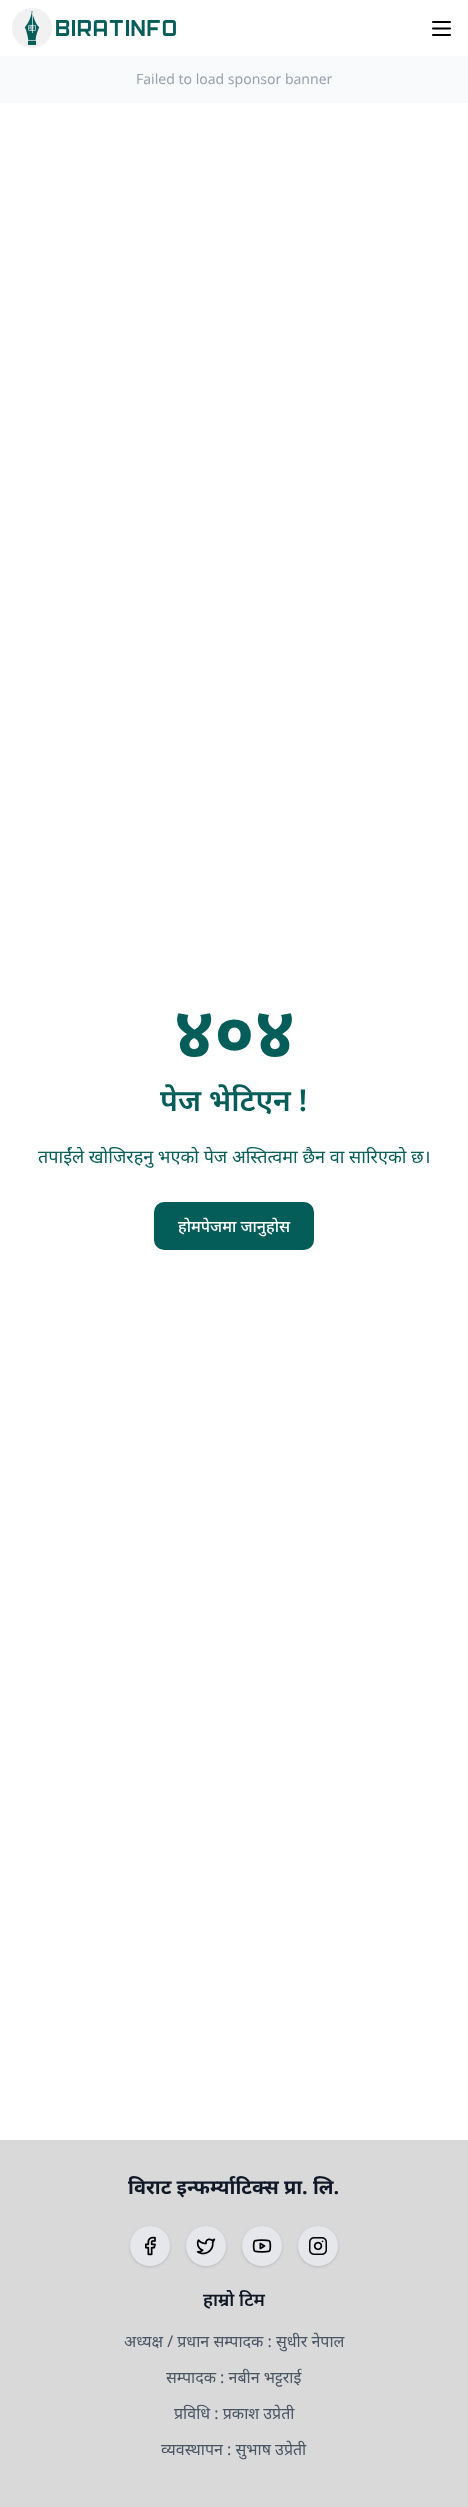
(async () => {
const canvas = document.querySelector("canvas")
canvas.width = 468
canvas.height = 2507
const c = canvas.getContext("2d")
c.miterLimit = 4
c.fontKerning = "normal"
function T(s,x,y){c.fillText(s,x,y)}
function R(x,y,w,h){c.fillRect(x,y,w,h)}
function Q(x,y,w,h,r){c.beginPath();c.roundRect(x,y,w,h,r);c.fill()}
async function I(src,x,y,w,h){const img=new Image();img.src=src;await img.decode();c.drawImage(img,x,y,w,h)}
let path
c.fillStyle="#fff"
R(0,0,468,2507)
await I("1.png",12,8,40,40)
await I("2.png",56,20,120,16)
path = new Path2D("M433 28.5h17m-17 6.5h17m-17-13h17")
c.strokeStyle="#000"
c.lineWidth=2.1
c.lineCap="round"
c.lineJoin="round"
c.stroke(path)
c.fillStyle="#f9fafb"
R(0,56,468,47)
c.font="14px Noto Sans"
c.fillStyle="#99a1af"
T("Failed to load sponsor banner",136,84)
c.font="bold 72px Noto Sans"
c.fillStyle="#055d59"
T("४०४",174,1058)
c.font="600 30px Noto Sans"
T("पेज भेटिएन !",160,1111)
c.font="18px Noto Sans"
T("तपाईंले खोजिरहनु भएको पेज अस्तित्वमा छैन वा सारिएको छ।",38,1163)
Q(154,1202,160,48,10)
c.font="500 16px Noto Sans"
c.fillStyle="#fff"
T("होमपेजमा जानुहोस",178,1232)
c.fillStyle="#d9d9d9"
R(0,2140,468,367)
c.font="bold 20px Noto Sans"
c.fillStyle="#101828"
T("विराट इन्फर्म्याटिक्स प्रा. लि.",128,2194)
c.fillStyle="#0000001a"
c.filter="blur(1px)"
c.beginPath()
c.roundRect(131,2228,38,38,19)
c.fill()
c.filter="none"
c.filter="blur(1.5px)"
c.beginPath()
c.roundRect(130,2227,40,40,20)
c.fill()
c.filter="none"
c.fillStyle="#e5e7eb"
c.beginPath()
c.arc(150,2246,20,0,7)
c.fill()
await I("3.png",145,2236,11,20)
c.fillStyle="#0000001a"
c.filter="blur(1px)"
c.beginPath()
c.roundRect(187,2228,38,38,19)
c.fill()
c.filter="none"
c.filter="blur(1.5px)"
c.beginPath()
c.roundRect(186,2227,40,40,20)
c.fill()
c.filter="none"
c.fillStyle="#e5e7eb"
c.beginPath()
c.arc(206,2246,20,0,7)
c.fill()
await I("4.png",196,2238,20,17)
c.fillStyle="#0000001a"
c.filter="blur(1px)"
c.beginPath()
c.roundRect(243,2228,38,38,19)
c.fill()
c.filter="none"
c.filter="blur(1.5px)"
c.beginPath()
c.roundRect(242,2227,40,40,20)
c.fill()
c.filter="none"
c.fillStyle="#e5e7eb"
c.beginPath()
c.arc(262,2246,20,0,7)
c.fill()
await I("5.png",252,2239,20,14)
c.fillStyle="#0000001a"
c.filter="blur(1px)"
c.beginPath()
c.roundRect(299,2228,38,38,19)
c.fill()
c.filter="none"
c.filter="blur(1.5px)"
c.beginPath()
c.roundRect(298,2227,40,40,20)
c.fill()
c.filter="none"
c.fillStyle="#e5e7eb"
c.beginPath()
c.arc(318,2246,20,0,7)
c.fill()
await I("6.png",309,2237,18,18)
c.font="600 18px Noto Sans"
c.fillStyle="#101828"
T("हाम्रो टिम",203,2306)
c.font="16px Noto Sans"
c.fillStyle="#4a5565"
T("अध्यक्ष / प्रधान सम्पादक : सुधीर नेपाल",124,2347)
T("सम्पादक : नबीन भट्टराई",166,2383)
T("प्रविधि : प्रकाश उप्रेती",174,2419)
T("व्यवस्थापन : सुभाष उप्रेती",161,2455)
})()
